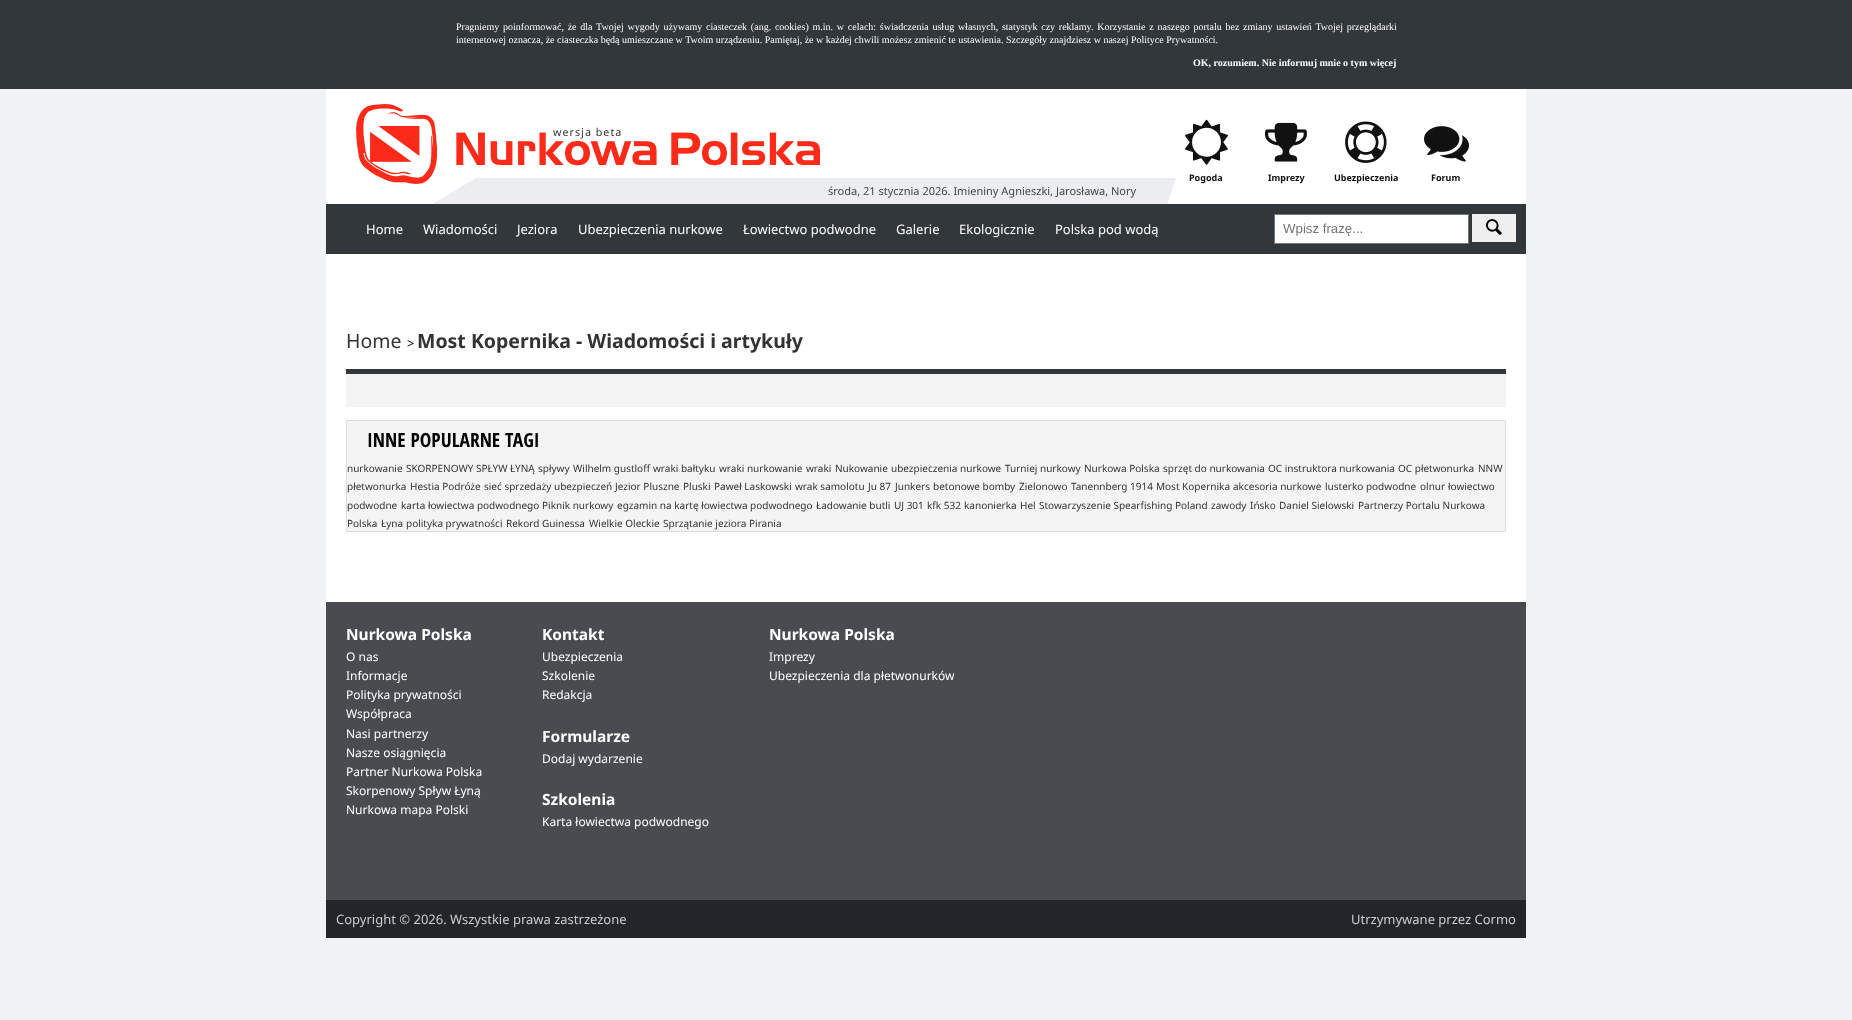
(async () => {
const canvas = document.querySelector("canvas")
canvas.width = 1852
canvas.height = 1020
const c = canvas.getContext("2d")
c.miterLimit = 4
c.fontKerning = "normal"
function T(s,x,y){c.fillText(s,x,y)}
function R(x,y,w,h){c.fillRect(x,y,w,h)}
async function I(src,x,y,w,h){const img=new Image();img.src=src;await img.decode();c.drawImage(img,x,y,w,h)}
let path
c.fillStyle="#f0f2f3"
R(0,0,1852,1020)
c.fillStyle="#32373b"
R(0,0,1852,89)
c.wordSpacing="1.25px"
c.font="10px Liberation Serif"
c.fillStyle="#fff"
T("Pragniemy poinformować, że dla Twojej wygody używamy ciasteczek (ang. cookies) m.in. w celach: świadczenia usług własnych, statystyk czy reklamy. Korzystanie z naszego portalu bez zmiany ustawień Twojej przeglądarki",456,30)
c.wordSpacing="0px"
T("internetowej oznacza, że ciasteczka będą umieszczane w Twoim urządzeniu. Pamiętaj, że w każdej chwili możesz zmienić te ustawienia. Szczegóły znajdziesz w naszej Polityce Prywatności.",456,43)
c.font="bold 10px Liberation Serif"
T("OK, rozumiem. Nie informuj mnie o tym więcej",1193,66)
R(326,89,1200,513)
await I("1.png",356,104,464,80)
c.letterSpacing="1px"
c.font="10.75px Noto Sans"
c.fillStyle="#333"
T("wersja beta",553,136)
await I("2.png",1185,119,43,46)
c.letterSpacing="0px"
c.font="bold 9px Noto Sans"
c.fillStyle="#111"
T("Pogoda",1189,181)
await I("3.png",1265,122,42,40)
T("Imprezy",1268,181)
await I("4.png",1345,121,42,42)
T("Ubezpieczenia",1334,181)
await I("5.png",1424,126,45,36)
T("Forum",1431,181)
c.fillStyle="#ecedf1"
R(476,178,690,26)
path = new Path2D("M476 178v30h-50z")
c.fill(path)
c.font="11px Noto Sans"
c.fillStyle="#444"
T("środa, 21 stycznia 2026. Imieniny Agnieszki, Jarosława, Nory",828,195)
c.fillStyle="#ecedf1"
path = new Path2D("M1166 208v-30h10z")
c.fill(path)
c.fillStyle="#32373b"
R(326,204,1200,50)
c.font="13px Noto Sans"
c.fillStyle="#fff"
T("Home",366,234)
T("Wiadomości",423,234)
T("Jeziora",517,234)
T("Ubezpieczenia nurkowe",578,234)
T("Łowiectwo podwodne",743,234)
T("Galerie",896,234)
T("Ekologicznie",959,234)
T("Polska pod wodą",1055,234)
c.beginPath()
c.rect(1274.5,214.5,194,29)
c.fill()
c.strokeStyle="#777"
c.stroke()
c.font="13.25px Liberation Sans"
c.fillStyle="#757575"
T("Wpisz frazę...",1283,233)
c.fillStyle="#efefef"
R(1472,214,44,28)
await I("6.png",1486,219,16,16)
c.font="19.5px Noto Sans"
c.fillStyle="#333"
T("Home",346,348)
c.font="13px Noto Sans"
c.fillStyle="#000"
T(">",407,348)
c.font="bold 19.5px Noto Sans"
c.fillStyle="#333"
T("Most Kopernika - Wiadomości i artykuły",417,348)
c.fillStyle="#f4f4f4"
R(346,374,1160,33)
c.fillStyle="#32373c"
R(346,369,1160,5)
c.fillStyle="#f4f4f4"
c.beginPath()
c.rect(346.5,420.5,1159,111)
c.fill()
c.strokeStyle="#ddd"
c.stroke()
c.font="bold 19.5px Open Sans Condensed"
c.fillStyle="#000"
T("INNE POPULARNE TAGI",367,447)
c.font="10px Noto Sans"
c.fillStyle="#333"
T("nurkowanie",347,472)
T("SKORPENOWY SPŁYW ŁYNĄ",406,472)
T("spływy",538,472)
T("Wilhelm gustloff",573,472)
T("wraki bałtyku",653,472)
T("wraki nurkowanie",719,472)
T("wraki",806,472)
T("Nukowanie",835,472)
T("ubezpieczenia nurkowe",891,472)
T("Turniej nurkowy",1005,472)
T("Nurkowa Polska",1084,472)
T("sprzęt do nurkowania",1163,472)
T("OC instruktora nurkowania",1268,472)
T("OC płetwonurka",1398,472)
T("NNW",1478,472)
T("płetwonurka",347,490)
T("Hestia Podróże",410,490)
T("sieć sprzedaży ubezpieczeń",484,490)
T("Jezior Pluszne",615,490)
T("Pluski",683,490)
T("Paweł Laskowski",714,490)
T("wrak samolotu",795,490)
T("Ju 87",868,490)
T("Junkers",895,490)
T("betonowe bomby",933,490)
T("Zielonowo",1019,490)
T("Tanennberg 1914",1071,490)
T("Most Kopernika",1156,490)
T("akcesoria nurkowe",1233,490)
T("lusterko podwodne",1325,490)
T("olnur",1420,490)
T("łowiectwo",1448,490)
T("podwodne",347,509)
T("karta łowiectwa podwodnego",401,509)
T("Piknik nurkowy",542,509)
T("egzamin na kartę łowiectwa podwodnego",617,509)
T("Ładowanie butli",816,509)
T("UJ 301",894,509)
T("kfk 532",927,509)
T("kanonierka",964,509)
T("Hel",1020,509)
T("Stowarzyszenie Spearfishing Poland",1039,509)
T("zawody",1211,509)
T("Ińsko",1250,509)
T("Daniel Sielowski",1279,509)
T("Partnerzy Portalu Nurkowa",1358,509)
T("Polska",347,527)
T("Łyna",381,527)
T("polityka prywatności",406,527)
T("Rekord Guinessa",506,527)
T("Wielkie Oleckie",589,527)
T("Sprzątanie jeziora",663,527)
T("Pirania",749,527)
c.fillStyle="#484c50"
R(326,602,1200,298)
c.font="bold 15.5px Noto Sans"
c.fillStyle="#fff"
T("Nurkowa Polska",346,640)
c.font="12px Noto Sans"
T("O nas",346,661)
T("Informacje",346,680)
T("Polityka prywatności",346,699)
T("Współpraca",346,718)
T("Nasi partnerzy",346,738)
T("Nasze osiągnięcia",346,757)
T("Partner Nurkowa Polska",346,776)
T("Skorpenowy Spływ Łyną",346,795)
T("Nurkowa mapa Polski",346,814)
c.font="bold 15.5px Noto Sans"
T("Kontakt",542,640)
c.font="12px Noto Sans"
T("Ubezpieczenia",542,661)
T("Szkolenie",542,680)
T("Redakcja",542,699)
c.font="bold 15.5px Noto Sans"
T("Formularze",542,742)
c.font="12px Noto Sans"
T("Dodaj wydarzenie",542,763)
c.font="bold 15.5px Noto Sans"
T("Szkolenia",542,805)
c.font="12px Noto Sans"
T("Karta łowiectwa podwodnego",542,826)
c.font="bold 15.5px Noto Sans"
T("Nurkowa Polska",769,640)
c.font="12px Noto Sans"
T("Imprezy",769,661)
T("Ubezpieczenia dla płetwonurków",769,680)
c.fillStyle="#222529"
R(326,900,1200,38)
c.font="13px Noto Sans"
c.fillStyle="#ccc"
T("Copyright © 2026. Wszystkie prawa zastrzeżone",336,924)
T("Utrzymywane przez Cormo",1351,924)
})()
